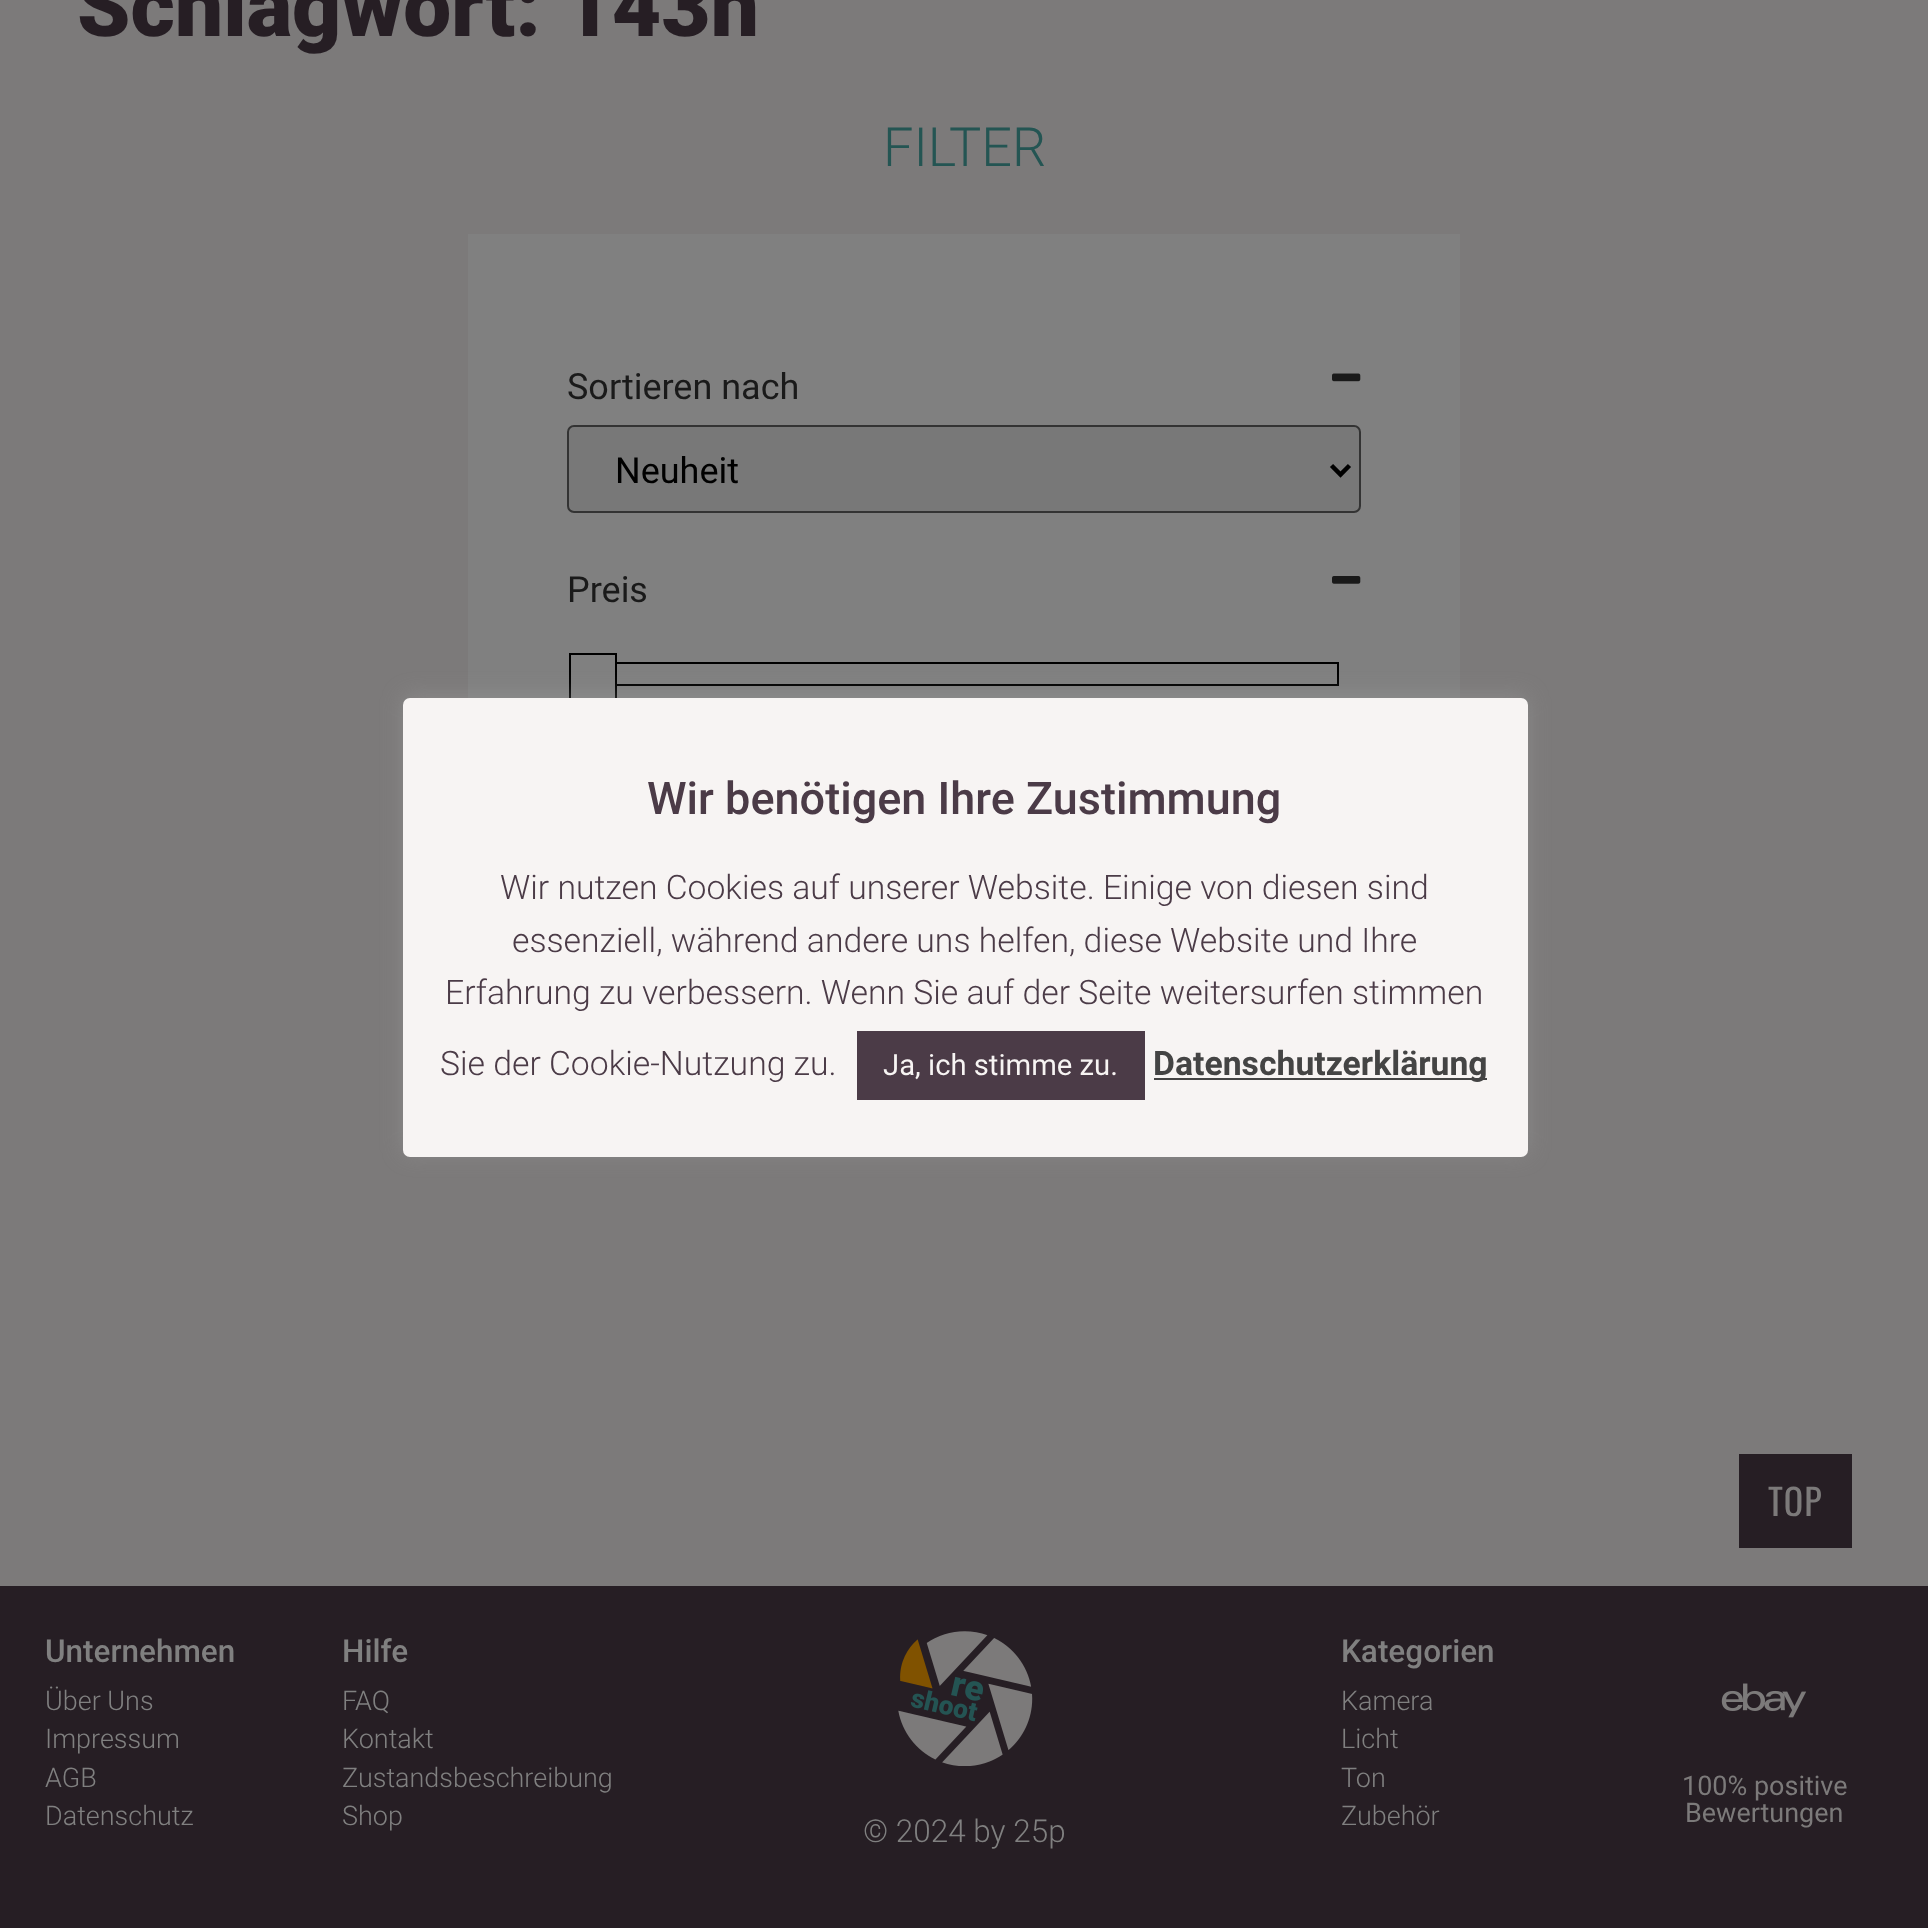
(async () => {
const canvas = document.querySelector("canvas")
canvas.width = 1928
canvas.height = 1928
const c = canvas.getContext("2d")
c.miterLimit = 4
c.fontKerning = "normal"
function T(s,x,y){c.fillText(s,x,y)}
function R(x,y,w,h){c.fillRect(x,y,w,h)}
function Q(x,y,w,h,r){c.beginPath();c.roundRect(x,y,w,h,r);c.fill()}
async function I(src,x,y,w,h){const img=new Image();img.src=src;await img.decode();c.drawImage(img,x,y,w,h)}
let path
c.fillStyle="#7c7a7a"
R(0,0,1928,1928)
c.font="900 85.5px Roboto"
c.fillStyle="#261e24"
T("Schlagwort: 143n",77,36)
c.font="300 54px Roboto"
c.fillStyle="#245553"
T("FILTER",883,166)
c.fillStyle="#808080"
R(468,234,992,464)
c.font="36px Roboto"
c.fillStyle="#1a1a1a"
T("Sortieren nach",567,399)
await I("1.png",1332,373,29,9)
c.fillStyle="#787878"
c.beginPath()
c.roundRect(568,426,792,86,6)
c.fill()
c.strokeStyle="#333"
c.lineWidth=2
c.stroke()
path = new Path2D("M1331.5 465.5l9 9l9-9")
c.strokeStyle="#000"
c.lineWidth=4.5
c.stroke(path)
c.fillStyle="#000"
T("Neuheit",615,483)
c.fillStyle="#1a1a1a"
T("Preis",567,602)
await I("2.png",1332,576,29,8)
c.lineWidth=2
c.strokeRect(591,663,747,22)
c.fillStyle="#808080"
R(590,662,25,24)
c.strokeRect(570,654,46,45)
c.fillStyle="#261e24"
R(1739,1454,113,94)
c.letterSpacing="1px"
c.font="36px Oswald"
c.fillStyle="#7c7a7a"
T("TOP",1768,1516)
c.fillStyle="#acabab4d"
c.filter="blur(11px)"
c.beginPath()
c.roundRect(403,695,1125,459,7)
c.fill()
c.filter="none"
c.fillStyle="#f7f4f3"
Q(403,698,1125,459,7)
c.letterSpacing="0px"
c.font="500 45px Roboto"
c.fillStyle="#4b3b47"
T("Wir benötigen Ihre Zustimmung",647,814)
c.font="300 33.75px Roboto"
T("Wir nutzen Cookies auf unserer Website. Einige von diesen sind",500,899)
T("essenziell, während andere uns helfen, diese Website und Ihre",512,952)
T("Erfahrung zu verbessern. Wenn Sie auf der Seite weitersurfen stimmen",445,1004)
T("Sie der Cookie-Nutzung zu.",440,1075)
R(857,1031,288,69)
c.font="29.25px Roboto"
c.fillStyle="#f7f4f3"
T("Ja, ich stimme zu.",883,1075)
c.fillStyle="#444"
R(1154,1078,333,2)
c.font="bold 33.75px Roboto"
T("Datenschutzerklärung",1153,1075)
c.fillStyle="#261e24"
R(0,1586,1928,342)
c.font="500 31.5px Roboto"
c.fillStyle="#808080"
T("Unternehmen",45,1662)
c.font="300 27px Roboto"
T("Über Uns",45,1710)
T("Impressum",45,1748)
T("AGB",45,1787)
T("Datenschutz",45,1825)
c.font="500 31.5px Roboto"
T("Hilfe",342,1662)
c.font="300 27px Roboto"
T("FAQ",342,1710)
T("Kontakt",342,1748)
T("Zustandsbeschreibung",342,1787)
T("Shop",342,1825)
c.font="500 31.5px Roboto"
T("Kategorien",1341,1662)
c.font="300 27px Roboto"
T("Kamera",1341,1710)
T("Licht",1341,1748)
T("Ton",1341,1787)
T("Zubehör",1341,1825)
await I("3.png",1721,1683,86,35)
c.font="27px Roboto"
c.fillStyle="#7c7a7a"
T("100% positive",1682,1795)
T("Bewertungen",1685,1822)
await I("4.png",898,1631,135,135)
c.font="300 31.5px Roboto"
c.fillStyle="#808080"
T("© 2024 by 25p",863,1842)
})()
